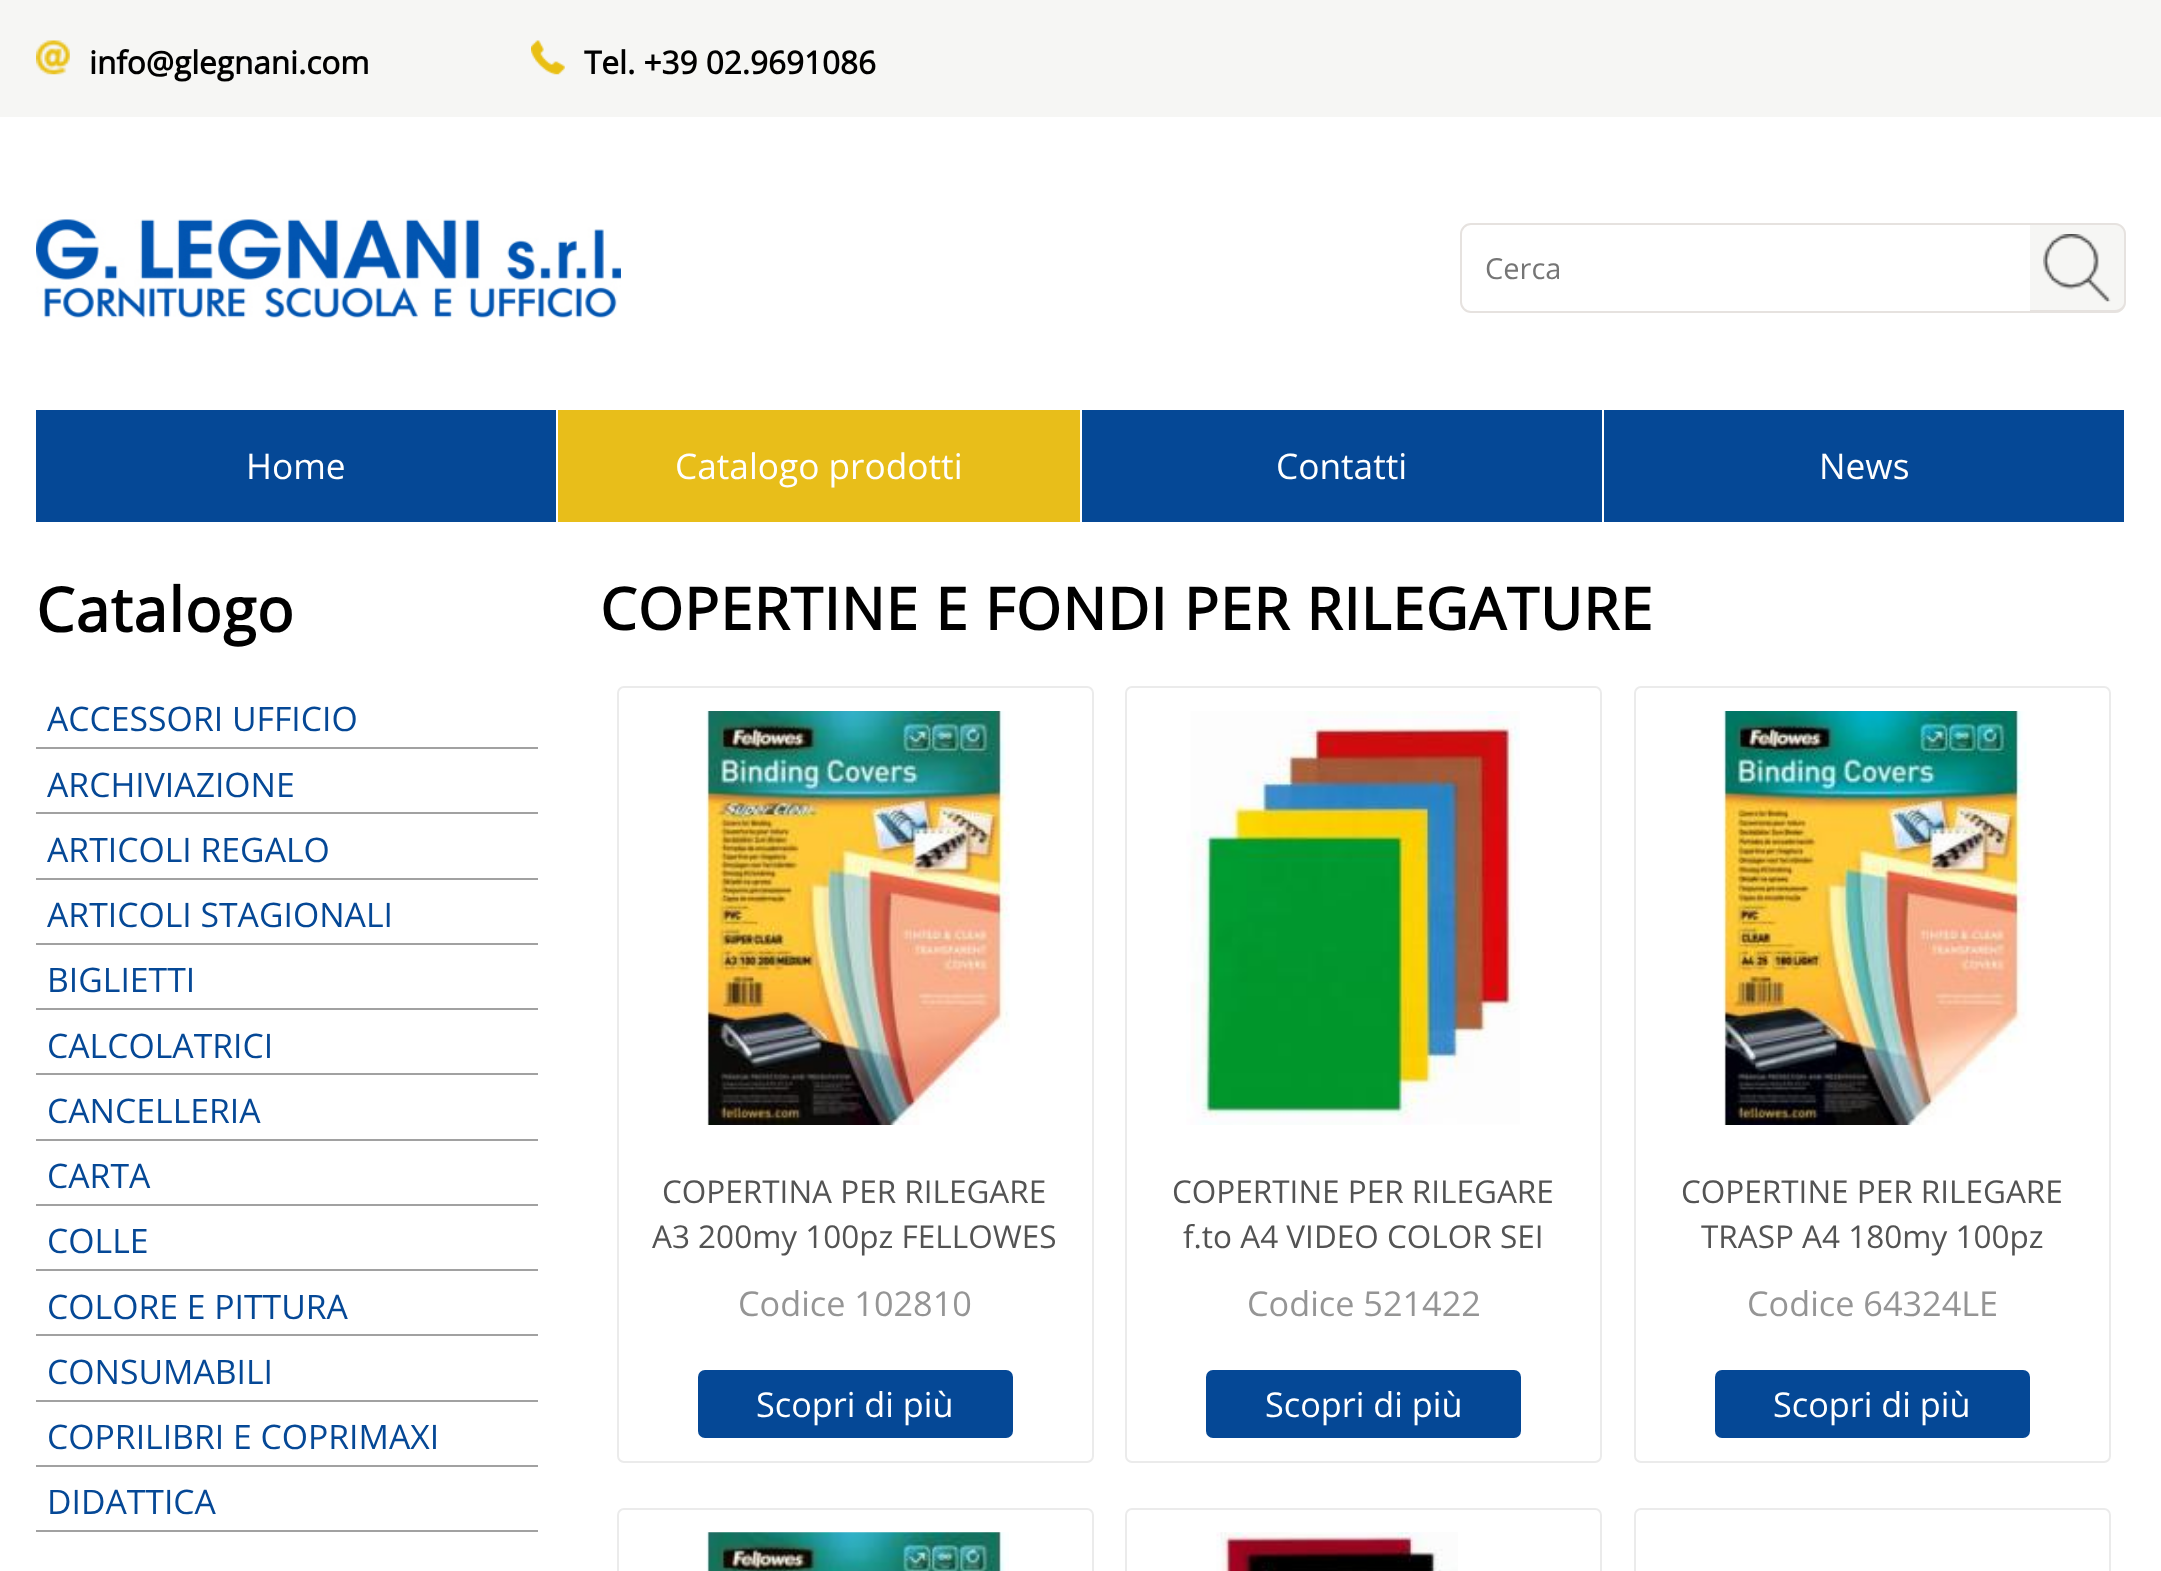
(async () => {
const canvas = document.querySelector("canvas")
canvas.width = 2161
canvas.height = 1571
const c = canvas.getContext("2d")
c.miterLimit = 4
c.fontKerning = "normal"
function T(s,x,y){c.fillText(s,x,y)}
function R(x,y,w,h){c.fillRect(x,y,w,h)}
function Q(x,y,w,h,r){c.beginPath();c.roundRect(x,y,w,h,r);c.fill()}
async function I(src,x,y,w,h){const img=new Image();img.src=src;await img.decode();c.drawImage(img,x,y,w,h)}
let path
c.fillStyle="#fff"
R(0,0,2161,1571)
c.fillStyle="#f6f6f4"
R(0,0,2161,117)
await I("1.png",36,40,34,35)
c.font="bold 31.5px Open Sans"
c.fillStyle="#000"
T("info@glegnani.com",89,74)
await I("2.png",531,40,34,35)
T("Tel. +39 02.9691086",584,74)
await I("3.png",36,219,585,99)
c.beginPath()
c.roundRect(1461,224,570,88,[10,0,0,10])
c.strokeStyle="#e6e2df"
c.lineWidth=2
c.stroke()
c.font="29px Open Sans"
c.fillStyle="#757575"
T("Cerca",1485,279)
c.fillStyle="#f6f6f4"
c.beginPath()
c.roundRect(2030,223,96,90,[0,11,11,0])
c.fill()
c.fillStyle="#e6e2df"
path = new Path2D("M2030 223h85c6 0 11 5 11 11v68c0 6-5 11-11 11h-85zm0 2h85c5 0 9 4 9 9v68c0 4-4 8-9 8h-85z")
c.fill(path,"evenodd")
await I("4.png",2043,234,68,68)
c.fillStyle="#054896"
R(36,410,2088,112)
c.fillStyle="#fff"
R(556,410,2,112)
c.font="35.25px Open Sans"
T("Home",246,479)
c.fillStyle="#e8be1a"
R(558,410,522,112)
c.fillStyle="#fff"
R(1080,410,2,112)
T("Catalogo prodotti",675,479)
R(1602,410,2,112)
T("Contatti",1276,479)
T("News",1819,479)
c.letterSpacing="1.1px"
c.font="bold 61px Open Sans"
c.fillStyle="#000"
T("Catalogo",36,632)
c.fillStyle="#a1a1a1"
R(36,747,502,2)
c.letterSpacing="0px"
c.font="33.75px Open Sans"
c.fillStyle="#054896"
T("ACCESSORI UFFICIO",47,731)
c.fillStyle="#a1a1a1"
R(36,812,502,2)
c.fillStyle="#054896"
T("ARCHIVIAZIONE",47,797)
c.fillStyle="#a1a1a1"
R(36,878,502,2)
c.fillStyle="#054896"
T("ARTICOLI REGALO",47,862)
c.fillStyle="#a1a1a1"
R(36,943,502,2)
c.fillStyle="#054896"
T("ARTICOLI STAGIONALI",47,927)
c.fillStyle="#a1a1a1"
R(36,1008,502,2)
c.fillStyle="#054896"
T("BIGLIETTI",47,992)
c.fillStyle="#a1a1a1"
R(36,1073,502,2)
c.fillStyle="#054896"
T("CALCOLATRICI",47,1058)
c.fillStyle="#a1a1a1"
R(36,1139,502,2)
c.fillStyle="#054896"
T("CANCELLERIA",47,1123)
c.fillStyle="#a1a1a1"
R(36,1204,502,2)
c.fillStyle="#054896"
T("CARTA",47,1188)
c.fillStyle="#a1a1a1"
R(36,1269,502,2)
c.fillStyle="#054896"
T("COLLE",47,1253)
c.fillStyle="#a1a1a1"
R(36,1334,502,2)
c.fillStyle="#054896"
T("COLORE E PITTURA",47,1319)
c.fillStyle="#a1a1a1"
R(36,1400,502,2)
c.fillStyle="#054896"
T("CONSUMABILI",47,1384)
c.fillStyle="#a1a1a1"
R(36,1465,502,2)
c.fillStyle="#054896"
T("COPRILIBRI E COPRIMAXI",47,1449)
c.fillStyle="#a1a1a1"
R(36,1530,502,2)
c.fillStyle="#054896"
T("DIDATTICA",47,1514)
c.letterSpacing="1.1px"
c.font="bold 58.1px Open Sans"
c.fillStyle="#000"
T("COPERTINE E FONDI PER RILEGATURE",600,630)
c.beginPath()
c.roundRect(618,687,475,775,6)
c.strokeStyle="#ebebeb"
c.stroke()
await I("5.png",706,711,304,414)
c.letterSpacing="0px"
c.font="31.5px Open Sans"
c.fillStyle="#535353"
T("COPERTINA PER RILEGARE",662,1203)
T("A3 200my 100pz FELLOWES",652,1248)
c.font="34.25px Open Sans"
c.fillStyle="#959595"
T("Codice 102810",738,1316)
c.fillStyle="#054896"
Q(698,1370,315,68,7)
c.fillStyle="#fff"
T("Scopri di più",756,1417)
c.beginPath()
c.roundRect(1126,687,475,775,6)
c.stroke()
await I("6.png",1186,711,334,414)
c.font="31.5px Open Sans"
c.fillStyle="#535353"
T("COPERTINE PER RILEGARE",1172,1203)
T("f.to A4 VIDEO COLOR SEI",1183,1248)
c.font="34.25px Open Sans"
c.fillStyle="#959595"
T("Codice 521422",1247,1316)
c.fillStyle="#054896"
Q(1206,1370,315,68,7)
c.fillStyle="#fff"
T("Scopri di più",1265,1417)
c.beginPath()
c.roundRect(1635,687,475,775,6)
c.stroke()
await I("7.png",1723,711,304,414)
c.font="31.5px Open Sans"
c.fillStyle="#535353"
T("COPERTINE PER RILEGARE",1681,1203)
T("TRASP A4 180my 100pz",1701,1248)
c.font="34.25px Open Sans"
c.fillStyle="#959595"
T("Codice 64324LE",1747,1316)
c.fillStyle="#054896"
Q(1715,1370,315,68,7)
c.fillStyle="#fff"
T("Scopri di più",1773,1417)
c.beginPath()
c.roundRect(618,1509,475,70,6)
c.stroke()
await I("8.png",706,1532,303,39)
c.beginPath()
c.roundRect(1126,1509,475,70,6)
c.stroke()
await I("9.png",1216,1532,242,39)
c.beginPath()
c.roundRect(1635,1509,475,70,6)
c.stroke()
})()
